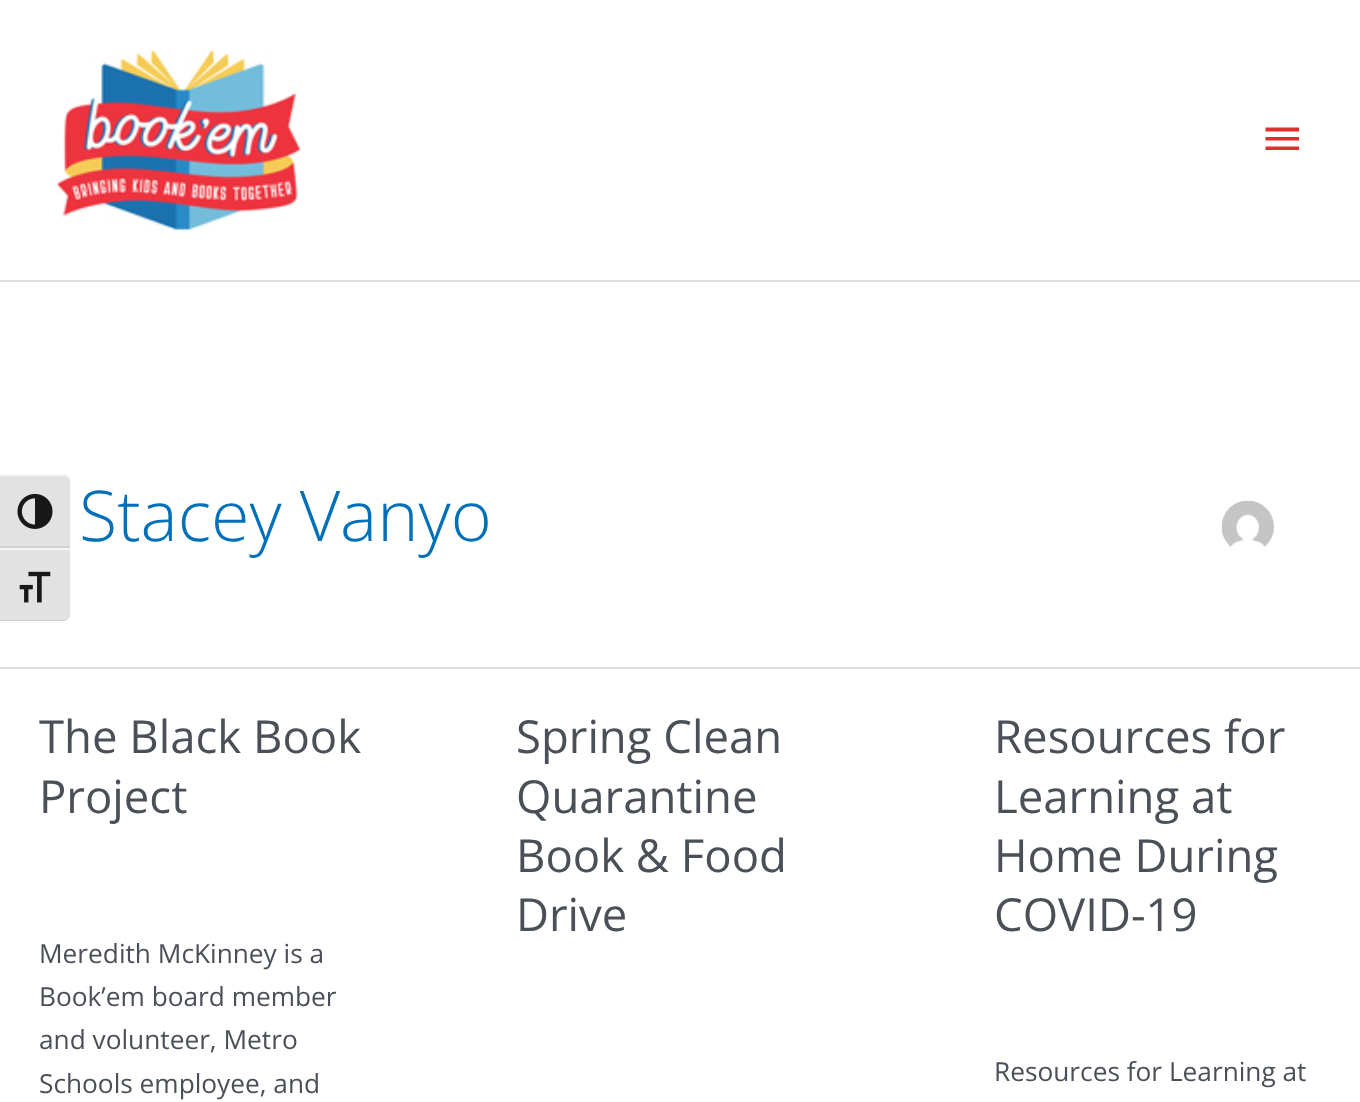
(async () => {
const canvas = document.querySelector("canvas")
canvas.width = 1360
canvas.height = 1102
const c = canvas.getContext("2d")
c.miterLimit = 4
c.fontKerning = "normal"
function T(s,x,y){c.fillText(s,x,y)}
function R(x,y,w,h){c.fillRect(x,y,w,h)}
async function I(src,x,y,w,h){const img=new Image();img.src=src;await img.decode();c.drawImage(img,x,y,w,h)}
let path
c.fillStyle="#fff"
R(0,0,1360,1102)
c.fillStyle="#e2e2e2"
c.beginPath()
c.roundRect(0,474,70,74,[0,7,0,0])
c.fill()
c.fillStyle="#f5f5f5"
path = new Path2D("M0 476h63c4 0 7 2 7 5c0-3-2-6-5-7h-65z")
c.fill(path)
c.fillStyle="#d2d2d2"
R(0,546,70,2)
await I("1.png",17,493,36,36)
c.fillStyle="#e2e2e2"
c.beginPath()
c.roundRect(0,548,70,73,[0,0,7,0])
c.fill()
c.fillStyle="#f5f5f5"
R(0,548,70,2)
c.fillStyle="#d2d2d2"
path = new Path2D("M0 620v1h63c4 0 7-3 7-7c0 3-3 6-7 6z")
c.fill(path)
await I("2.png",19,571,32,32)
c.fillStyle="#ddd"
R(0,280,1360,2)
await I("3.png",56,46,246,186)
c.fillStyle="#e02e2e"
path = new Path2D("M1265.5 127.5h33.5v4h-33.5zm0 13v-3.5h33.5v3.5zm0 9.5v-3.5h33.5v3.5z")
c.fill(path)
c.fillStyle="#ddd"
R(0,667,1360,2)
c.font="300 70px Open Sans"
c.fillStyle="#0170b9"
T("Stacey Vanyo",79,541)
await I("4.png",1221,500,53,47)
c.font="45.5px Open Sans"
c.fillStyle="#4b4f58"
T("The Black Book",39,753)
T("Project",39,813)
c.font="26.25px Open Sans"
T("Meredith McKinney is a",39,963)
T("Book’em board member",39,1006)
T("and volunteer, Metro",39,1049)
T("Schools employee, and",39,1093)
c.font="45.5px Open Sans"
T("Spring Clean",516,753)
T("Quarantine",516,813)
T("Book & Food",516,872)
T("Drive",516,931)
T("Resources for",994,753)
T("Learning at",994,813)
T("Home During",994,872)
T("COVID-19",994,931)
c.font="26.25px Open Sans"
T("Resources for Learning at",994,1081)
})()
